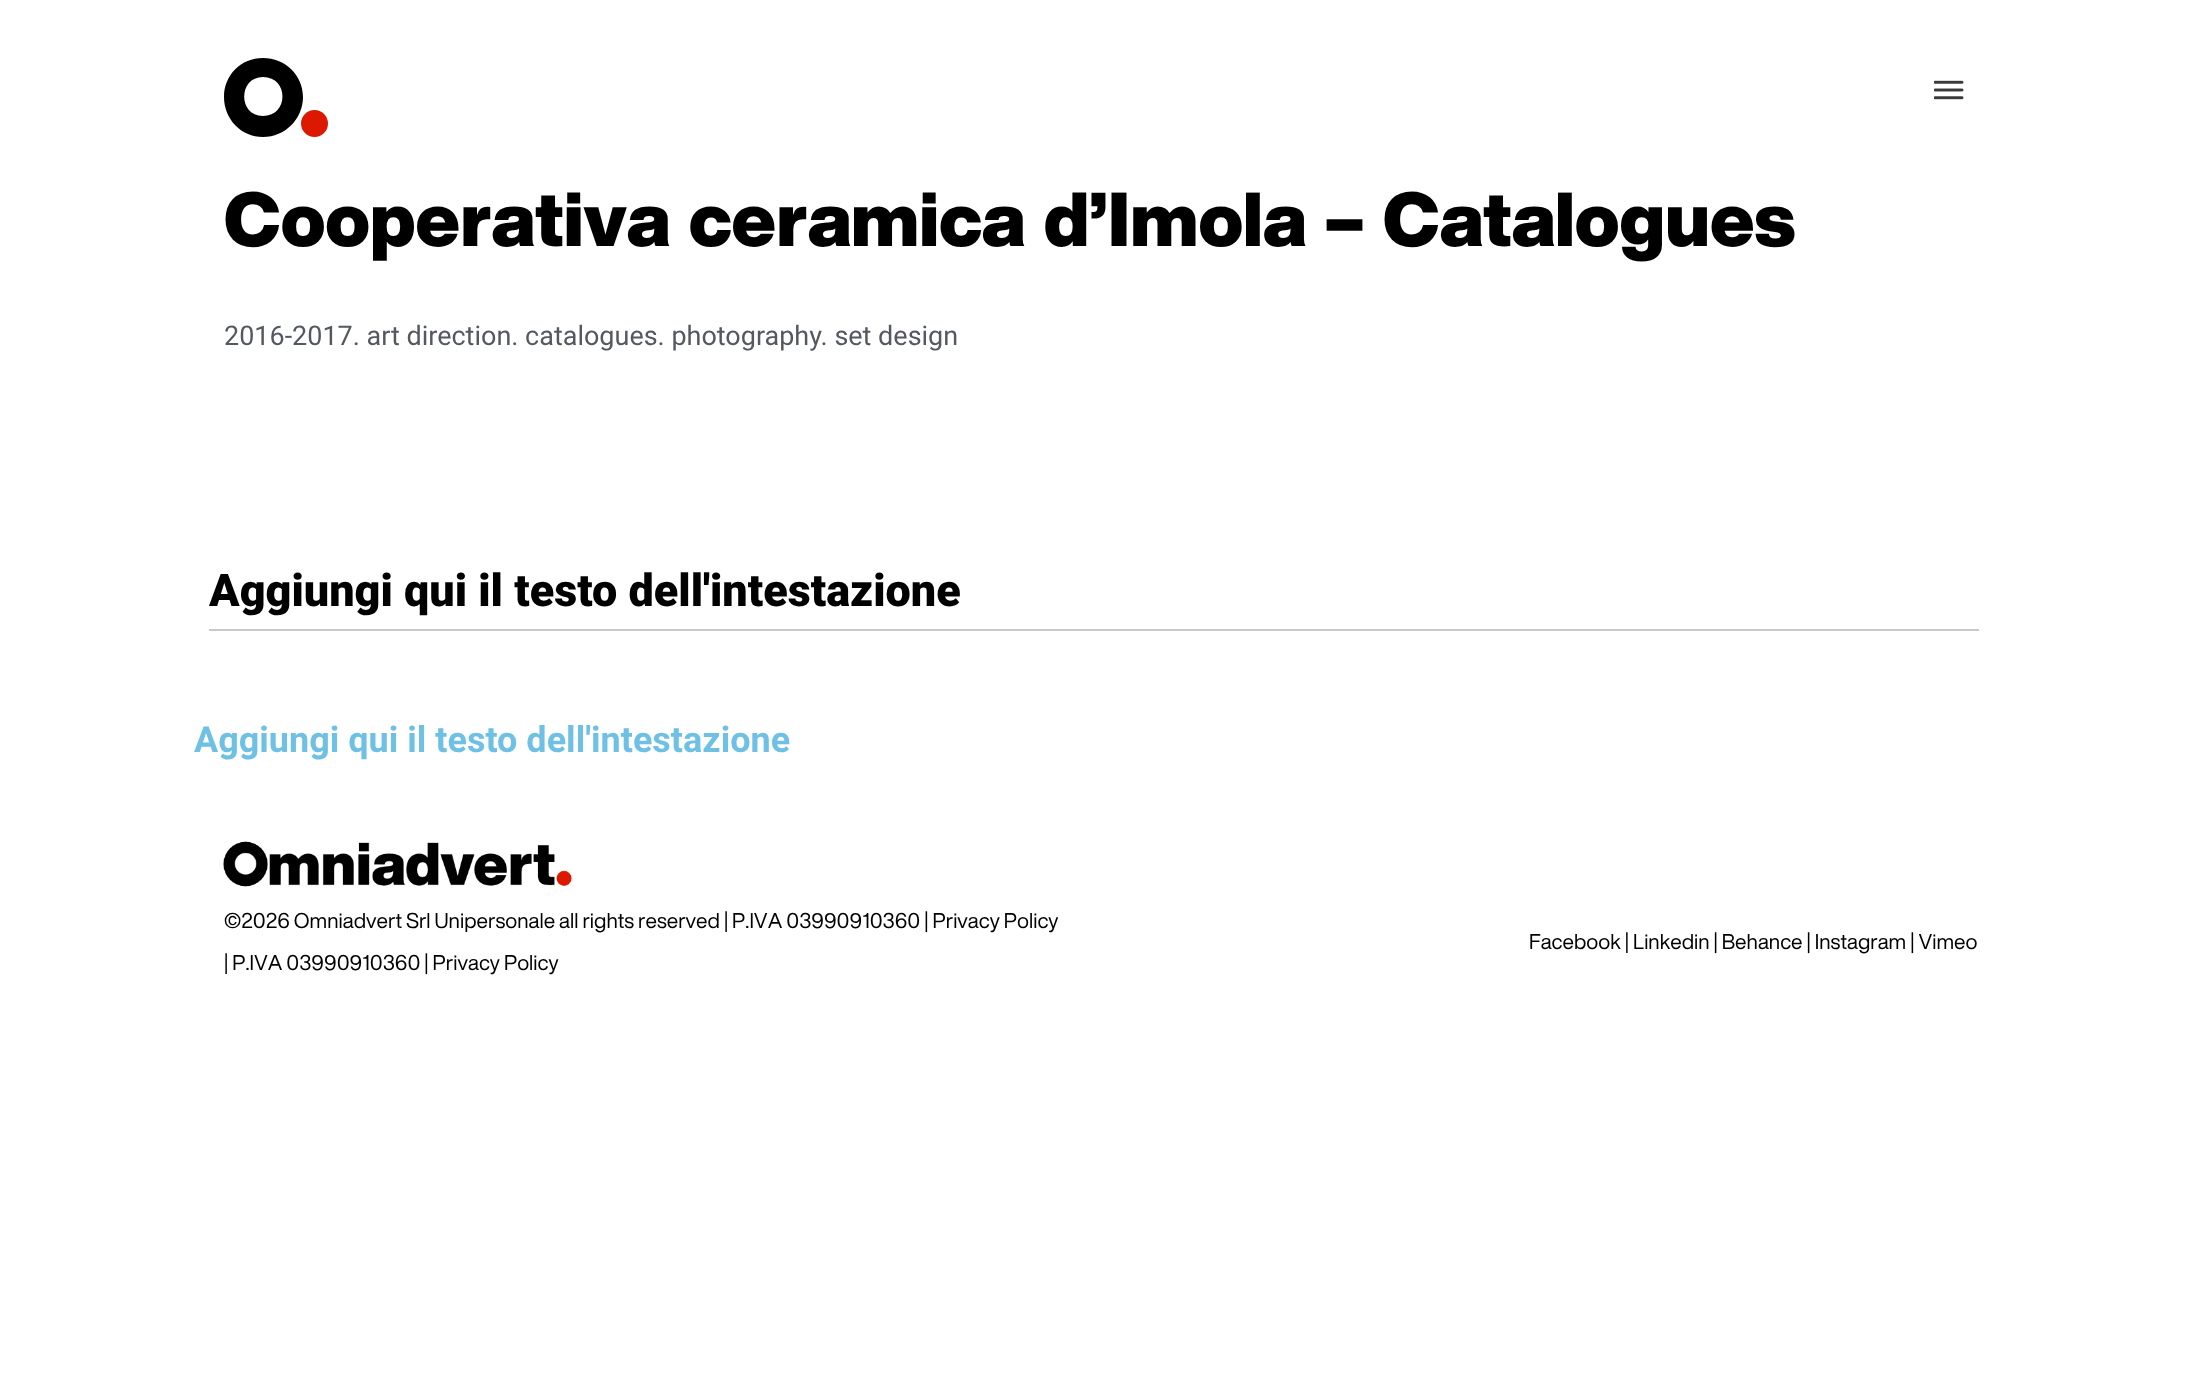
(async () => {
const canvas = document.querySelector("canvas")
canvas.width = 2187
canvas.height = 1386
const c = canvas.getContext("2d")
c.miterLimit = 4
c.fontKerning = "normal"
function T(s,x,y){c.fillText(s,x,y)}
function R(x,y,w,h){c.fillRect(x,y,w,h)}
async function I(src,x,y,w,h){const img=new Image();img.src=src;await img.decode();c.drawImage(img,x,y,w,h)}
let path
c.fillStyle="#fff"
R(0,0,2187,1386)
c.fillStyle="#000"
path = new Path2D("M263 58c22 0 40 17 40 39c0 22-18 40-40 40c-22 0-39-18-39-40c0-22 17-39 39-39zm0 19c26 0 26 39 0 39c-25 0-25-39 0-39z")
c.fill(path,"evenodd")
c.fillStyle="#dc1900"
c.beginPath()
c.arc(314.5,123.5,13.5,0,7)
c.fill()
await I("1.png",1934,80,30,20)
c.font="75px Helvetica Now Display"
c.fillStyle="#000"
T("Cooperativa ceramica d’Imola – Catalogues",224,246)
c.font="27px Roboto"
c.fillStyle="#54595f"
T("2016-2017. art direction. catalogues. photography. set design",224,345)
c.fillStyle="#c9c9c9"
R(209,629,1770,2)
c.font="900 45px Roboto"
c.fillStyle="#000"
T("Aggiungi qui il testo dell'intestazione",209,606)
c.font="bold 36px Roboto"
c.fillStyle="#6ec1e4"
T("Aggiungi qui il testo dell'intestazione",194,752)
await I("2.png",223,841,349,46)
c.font="21px 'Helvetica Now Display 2'"
c.fillStyle="#000"
T("©2026 Omniadvert Srl Unipersonale all rights reserved | P.IVA 03990910360 | Privacy Policy",224,928)
T("| P.IVA 03990910360 | Privacy Policy",224,970)
T("Facebook | Linkedin | Behance | Instagram | Vimeo",1529,949)
})()
